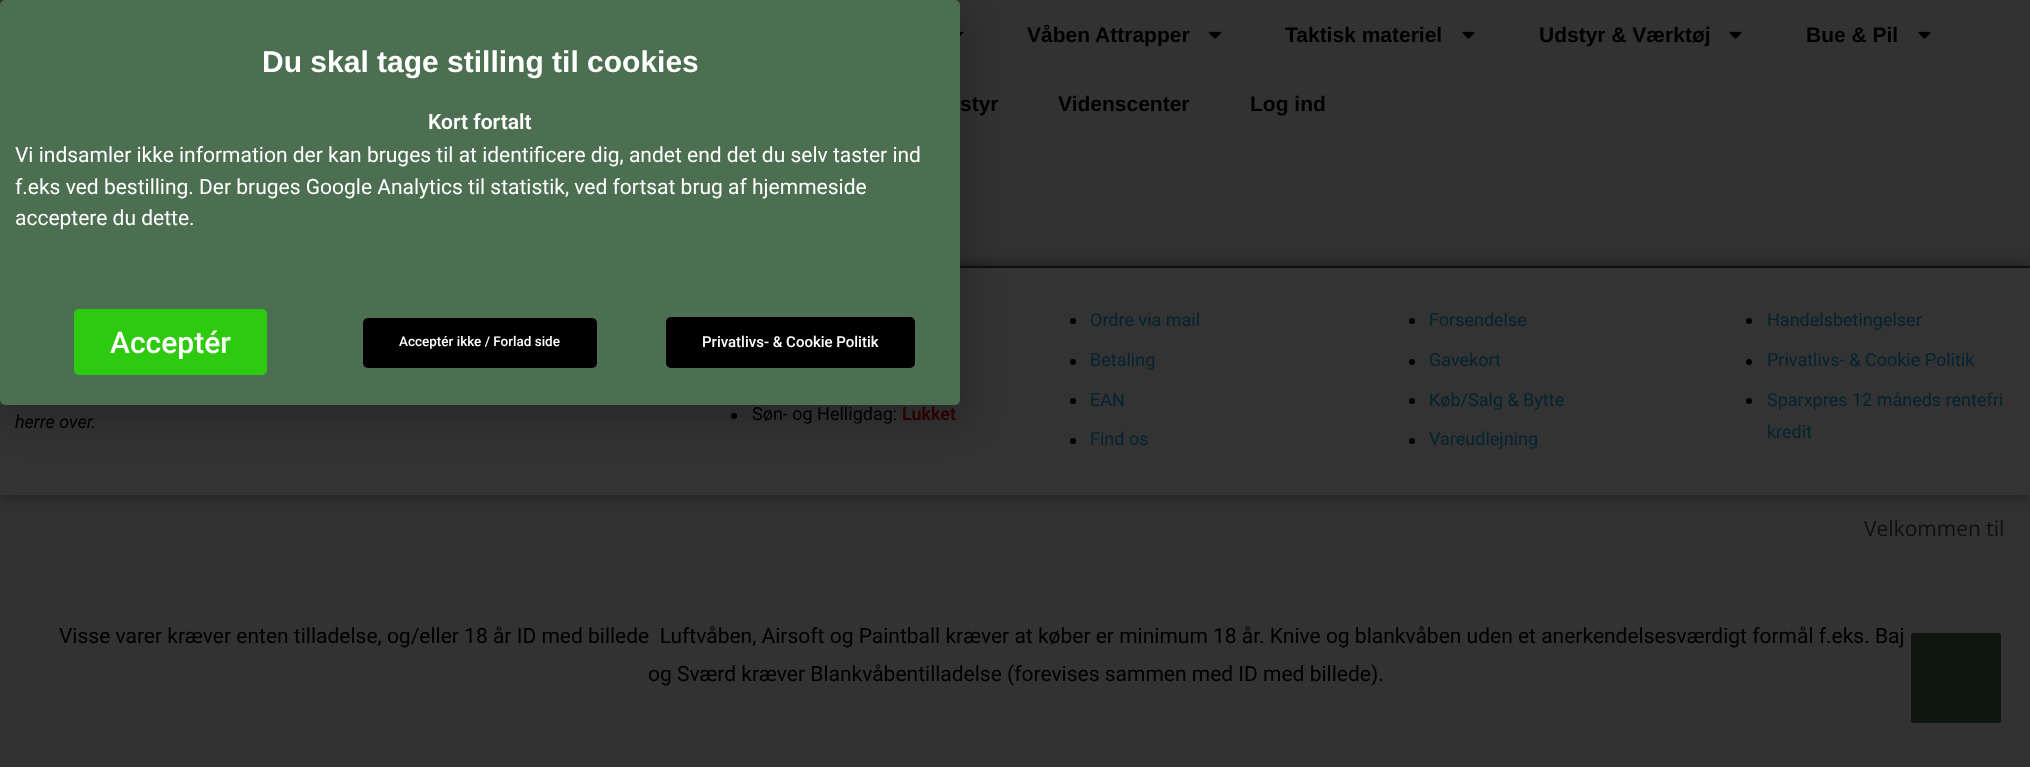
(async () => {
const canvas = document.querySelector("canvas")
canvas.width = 2030
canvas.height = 767
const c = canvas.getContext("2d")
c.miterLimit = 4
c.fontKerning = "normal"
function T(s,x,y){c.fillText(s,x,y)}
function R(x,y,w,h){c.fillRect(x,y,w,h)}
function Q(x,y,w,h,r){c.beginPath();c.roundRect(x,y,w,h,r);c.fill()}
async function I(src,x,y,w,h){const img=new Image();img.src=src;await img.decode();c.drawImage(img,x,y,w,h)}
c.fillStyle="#323232"
R(0,0,2030,767)
await I("1.png",960,31,4,5)
c.font="bold 21px Liberation Sans"
c.fillStyle="#000"
T("Våben Attrapper",1027,42)
await I("2.png",1208,31,14,8)
T("Taktisk materiel",1285,42)
await I("3.png",1462,31,13,8)
T("Udstyr & Værktøj",1539,42)
await I("3.png",1729,31,13,8)
T("Bue & Pil",1806,42)
await I("3.png",1918,31,13,8)
T("styr",960,111)
T("Videnscenter",1058,111)
T("Log ind",1250,111)
c.fillStyle="#00000080"
c.filter="blur(7.5px)"
c.beginPath()
c.rect(0,266,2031,229)
c.fill()
c.filter="none"
c.fillStyle="#333"
R(0,268,2030,227)
c.fillStyle="#0f0f0f"
R(960,266,1070,2)
c.font="italic 18px Roboto"
c.fillStyle="#000"
T("herre over.",15,428)
c.beginPath()
c.arc(734,416,3,0,7)
c.fill()
c.font="18px Roboto"
T("Søn- og Helligdag:",752,420)
c.font="600 18px Roboto"
c.fillStyle="#300"
T("Lukket",902,420)
c.fillStyle="#000"
c.beginPath()
c.arc(1073,321,3,0,7)
c.fill()
c.font="18px Roboto"
c.fillStyle="#042330"
T("Ordre via mail",1090,326)
c.fillStyle="#000"
c.beginPath()
c.arc(1073,362,3,0,7)
c.fill()
c.fillStyle="#042330"
T("Betaling",1090,366)
c.fillStyle="#000"
c.beginPath()
c.arc(1073,401,3,0,7)
c.fill()
c.fillStyle="#042330"
T("EAN",1090,406)
c.fillStyle="#000"
c.beginPath()
c.arc(1073,441,3,0,7)
c.fill()
c.fillStyle="#042330"
T("Find os",1090,445)
c.fillStyle="#000"
c.beginPath()
c.arc(1412,321,3,0,7)
c.fill()
c.fillStyle="#042330"
T("Forsendelse",1429,326)
c.fillStyle="#000"
c.beginPath()
c.arc(1412,362,3,0,7)
c.fill()
c.fillStyle="#042330"
T("Gavekort",1429,366)
c.fillStyle="#000"
c.beginPath()
c.arc(1412,401,3,0,7)
c.fill()
c.fillStyle="#042330"
T("Køb/Salg & Bytte",1429,406)
c.fillStyle="#000"
c.beginPath()
c.arc(1412,441,3,0,7)
c.fill()
c.fillStyle="#042330"
T("Vareudlejning",1429,445)
c.fillStyle="#000"
c.beginPath()
c.arc(1749,321,3,0,7)
c.fill()
c.fillStyle="#042330"
T("Handelsbetingelser",1767,326)
c.fillStyle="#000"
c.beginPath()
c.arc(1749,362,3,0,7)
c.fill()
c.fillStyle="#042330"
T("Privatlivs- & Cookie Politik",1767,366)
c.fillStyle="#000"
c.beginPath()
c.arc(1749,401,3,0,7)
c.fill()
c.fillStyle="#042330"
T("Sparxpres 12 måneds rentefri",1767,406)
T("kredit",1767,438)
c.font="21px Open Sans"
c.fillStyle="#0f0f0f"
T("Velkommen til",1864,536)
c.font="21px Roboto"
c.fillStyle="#000"
T("Visse varer kræver enten tilladelse, og/eller 18 år ID med billede  Luftvåben, Airsoft og Paintball kræver at køber er minimum 18 år. Knive og blankvåben uden et anerkendelsesværdigt formål f.eks. Baj",59,643)
T("og Sværd kræver Blankvåbentilladelse (forevises sammen med ID med billede).",648,681)
c.fillStyle="#00000033"
c.filter="blur(17px)"
c.beginPath()
c.roundRect(-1,8,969,414,9)
c.fill()
c.filter="none"
c.fillStyle="#4c6e51"
Q(0,0,960,405,5)
c.font="bold 30px Liberation Sans"
c.fillStyle="#fff"
T("Du skal tage stilling til cookies",262,72)
c.font="600 21px Roboto"
T("Kort fortalt",428,129)
c.font="21px Roboto"
T("Vi indsamler ikke information der kan bruges til at identificere dig, andet end det du selv taster ind",15,162)
T("f.eks ved bestilling. Der bruges Google Analytics til statistik, ved fortsat brug af hjemmeside",15,194)
T("acceptere du dette.",15,225)
c.fillStyle="#2dca0f"
Q(74,309,193,66,5)
c.font="500 30px Roboto"
c.fillStyle="#fff"
T("Acceptér",110,353)
c.fillStyle="#000"
Q(363,318,234,50,5)
c.font="500 13.5px Roboto"
c.fillStyle="#fff"
T("Acceptér ikke / Forlad side",399,346)
c.fillStyle="#000"
Q(666,317,249,51,5)
c.font="500 15px Roboto"
c.fillStyle="#fff"
T("Privatlivs- & Cookie Politik",702,347)
c.fillStyle="#0f1610"
Q(1911,633,90,90,3)
})()
